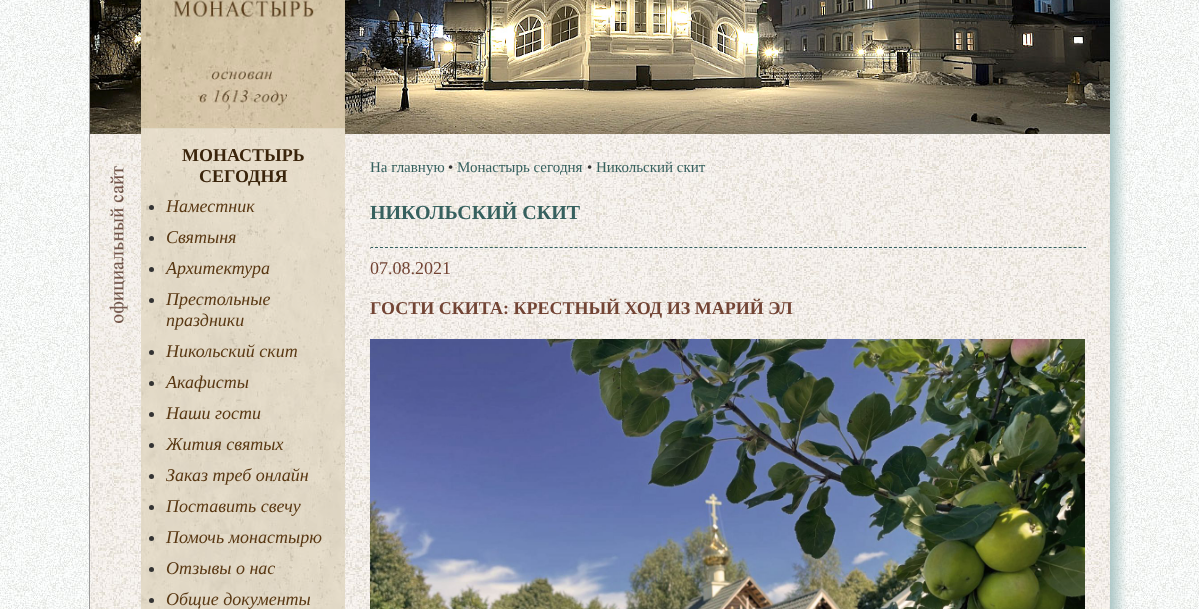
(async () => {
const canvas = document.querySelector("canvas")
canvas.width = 1199
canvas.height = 609
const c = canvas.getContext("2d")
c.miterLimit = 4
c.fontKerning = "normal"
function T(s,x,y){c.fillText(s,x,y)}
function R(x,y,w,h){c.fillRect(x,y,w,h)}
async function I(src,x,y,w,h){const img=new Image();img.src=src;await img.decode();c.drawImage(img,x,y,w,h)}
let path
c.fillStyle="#fff"
R(0,0,1199,609)
await I("1.png",0,0,1199,609)
await I("2.png",90,134,1020,475)
c.fillStyle="#999"
R(89,0,1,609)
await I("3.png",90,0,1020,134)
await I("4.png",1110,0,20,609)
await I("5.png",141,123,204,486)
await I("6.png",141,0,204,123)
c.fillStyle="#ffffff66"
R(141,129,204,62)
c.fillStyle="#dfd7c2"
R(141,128,204,1)
c.font="bold 18px Liberation Serif"
c.fillStyle="#3a240b"
T("МОНАСТЫРЬ",182,161)
T("СЕГОДНЯ",199,182)
c.fillStyle="#ffffff66"
R(141,191,204,418)
c.fillStyle="#333"
c.beginPath()
c.arc(151.5,207.5,2.5,0,7)
c.fill()
c.font="italic 18px Liberation Serif"
c.fillStyle="#593813"
T("Наместник",166,212)
c.fillStyle="#333"
c.beginPath()
c.arc(151.5,238.5,2.5,0,7)
c.fill()
c.fillStyle="#593813"
T("Святыня",166,243)
c.fillStyle="#333"
c.beginPath()
c.arc(151.5,269.5,2.5,0,7)
c.fill()
c.fillStyle="#593813"
T("Архитектура",166,274)
c.fillStyle="#333"
c.beginPath()
c.arc(151.5,300.5,2.5,0,7)
c.fill()
c.fillStyle="#593813"
T("Престольные",166,305)
T("праздники",166,326)
c.fillStyle="#333"
c.beginPath()
c.arc(151.5,352.5,2.5,0,7)
c.fill()
c.fillStyle="#593813"
T("Никольский скит",166,357)
c.fillStyle="#333"
c.beginPath()
c.arc(151.5,383.5,2.5,0,7)
c.fill()
c.fillStyle="#593813"
T("Акафисты",166,388)
c.fillStyle="#333"
c.beginPath()
c.arc(151.5,414.5,2.5,0,7)
c.fill()
c.fillStyle="#593813"
T("Наши гости",166,419)
c.fillStyle="#333"
c.beginPath()
c.arc(151.5,445.5,2.5,0,7)
c.fill()
c.fillStyle="#593813"
T("Жития святых",166,450)
c.fillStyle="#333"
c.beginPath()
c.arc(151.5,476.5,2.5,0,7)
c.fill()
c.fillStyle="#593813"
T("Заказ треб онлайн",166,481)
c.fillStyle="#333"
c.beginPath()
c.arc(151.5,507.5,2.5,0,7)
c.fill()
c.fillStyle="#593813"
T("Поставить свечу",166,512)
c.fillStyle="#333"
c.beginPath()
c.arc(151.5,538.5,2.5,0,7)
c.fill()
c.fillStyle="#593813"
T("Помочь монастырю",166,543)
c.fillStyle="#333"
c.beginPath()
c.arc(151.5,569.5,2.5,0,7)
c.fill()
c.fillStyle="#593813"
T("Отзывы о нас",166,574)
c.fillStyle="#333"
c.beginPath()
c.arc(151.5,600.5,2.5,0,7)
c.fill()
c.fillStyle="#593813"
T("Общие документы",166,605)
await I("7.png",90,153,50,218)
c.font="15px Liberation Serif"
c.fillStyle="#36605e"
T("На главную",370,172)
c.fillStyle="#333"
T("•",448,172)
c.fillStyle="#36605e"
T("Монастырь сегодня",457,172)
c.fillStyle="#333"
T("•",587,172)
c.fillStyle="#36605e"
T("Никольский скит",596,172)
c.font="bold 20px Liberation Serif"
T("НИКОЛЬСКИЙ СКИТ",370,219)
path = new Path2D("M370 247.5h717")
c.strokeStyle="#36605e"
c.setLineDash([3,1.99])
c.stroke(path)
c.fillStyle="#eee"
R(1086,247,1,2)
R(370,248,717,1)
c.fillStyle="#9f9f9f"
R(370,247,1,2)
c.font="18px Liberation Serif"
c.fillStyle="#724434"
T("07.08.2021",370,274)
c.font="bold 18px Liberation Serif"
T("ГОСТИ СКИТА: КРЕСТНЫЙ ХОД ИЗ МАРИЙ ЭЛ",370,314)
await I("8.png",370,339,715,270)
})()
